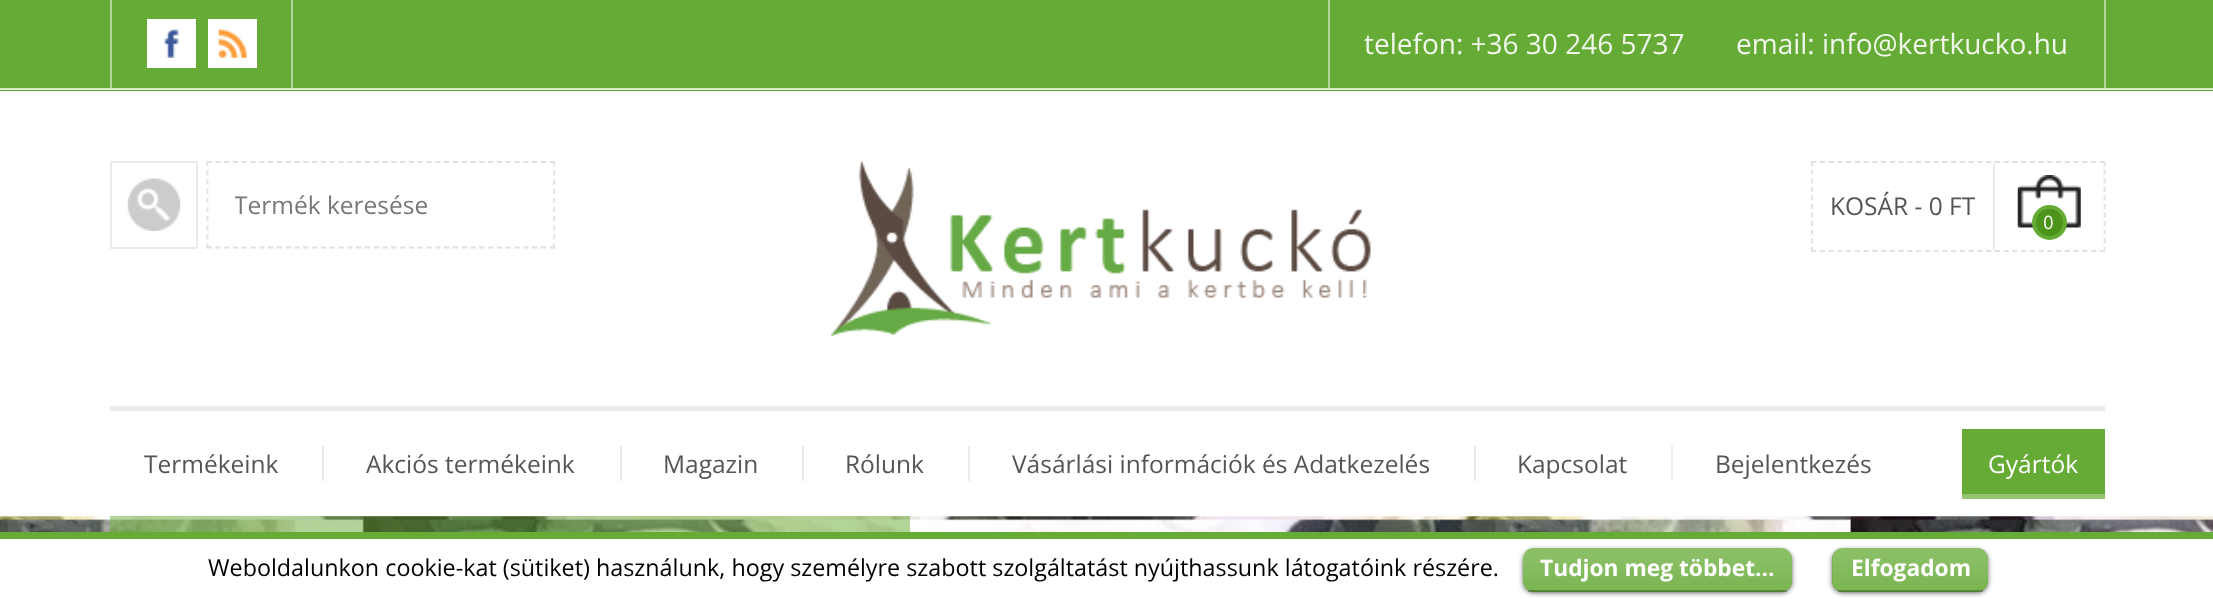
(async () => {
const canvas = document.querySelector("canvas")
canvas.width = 2213
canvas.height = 599
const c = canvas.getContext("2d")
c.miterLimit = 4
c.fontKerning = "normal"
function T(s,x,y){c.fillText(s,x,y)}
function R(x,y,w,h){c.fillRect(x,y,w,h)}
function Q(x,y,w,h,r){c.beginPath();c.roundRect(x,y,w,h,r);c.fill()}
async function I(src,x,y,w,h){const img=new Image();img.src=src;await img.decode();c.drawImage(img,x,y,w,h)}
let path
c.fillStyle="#fff"
R(0,0,2213,599)
c.fillStyle="#66ab36"
R(0,0,2213,91)
c.fillStyle="#d9eacd"
R(0,88,2213,2)
c.fillStyle="#b3d59b"
R(291,0,2,88)
R(110,0,2,88)
c.fillStyle="#fff"
R(147,19,49,49)
await I("1.png",164,29,15,29)
R(208,19,49,49)
await I("2.png",218,29,29,29)
c.fillStyle="#b3d59b"
R(2104,0,2,88)
R(1328,0,2,88)
c.font="28px Open Sans"
c.fillStyle="#f0f7eb"
T("telefon: +36 30 246 5737",1364,54)
T("email: info@kertkucko.hu",1736,54)
c.fillStyle="#ebebeb"
R(110,406,1995,5)
await I("3.png",127,178,54,53)
c.strokeStyle="#ebebeb"
c.lineWidth=2
c.strokeRect(111,162,86,86)
path = new Path2D("M206.5 162h348.5")
c.strokeStyle="#e1e1e1"
c.lineWidth=1.8
c.setLineDash([5.25,3.55])
c.stroke(path)
path = new Path2D("M554 161v87.5")
c.setLineDash([5.25,3.89])
c.stroke(path)
path = new Path2D("M206.5 247.5h348.5")
c.setLineDash([5.25,3.55])
c.stroke(path)
path = new Path2D("M207.5 161v87.5")
c.setLineDash([5.25,3.89])
c.stroke(path)
c.save()
c.beginPath()
c.rect(235,189,292,33)
c.clip()
c.font="24.5px Open Sans"
c.fillStyle="#777"
T("Termék keresése",234,214)
c.restore()
await I("4.png",830,161,541,175)
path = new Path2D("M1811 162h294")
c.setLineDash([5.25,3.5])
c.stroke(path)
path = new Path2D("M2104.5 161v91")
c.setLineDash([5.25,3.32])
c.stroke(path)
path = new Path2D("M1811 251h294")
c.setLineDash([5.25,3.5])
c.stroke(path)
path = new Path2D("M1812 161v91")
c.setLineDash([5.25,3.32])
c.stroke(path)
R(1993,163,2,87)
c.font="24.5px Open Sans"
c.fillStyle="#555"
T("KOSÁR - 0 FT",1830,215)
await I("5.png",2017,175,64,53)
c.fillStyle="#4c9319"
c.beginPath()
c.arc(2049.5,222.5,15.5,0,7)
c.fill()
c.strokeStyle="#66ab36"
c.lineWidth=4
c.setLineDash([])
c.stroke()
c.font="19px Ubuntu"
c.fillStyle="#fff"
T("0",2043,229)
c.font="24.5px Open Sans"
c.fillStyle="#555"
T("Termékeink",144,473)
c.fillStyle="#ebebeb"
R(322,446,2,35)
c.fillStyle="#555"
T("Akciós termékeink",366,473)
c.fillStyle="#ebebeb"
R(620,446,2,35)
c.fillStyle="#555"
T("Magazin",663,473)
c.fillStyle="#ebebeb"
R(802,446,2,35)
c.fillStyle="#555"
T("Rólunk",845,473)
c.fillStyle="#ebebeb"
R(968,446,2,35)
c.fillStyle="#555"
T("Vásárlási információk és Adatkezelés",1012,473)
c.fillStyle="#ebebeb"
R(1474,446,2,35)
c.fillStyle="#555"
T("Kapcsolat",1517,473)
c.fillStyle="#ebebeb"
R(1671,446,2,35)
c.fillStyle="#555"
T("Bejelentkezés",1715,473)
c.fillStyle="#66ab36"
R(1962,429,143,65)
c.fillStyle="#94c472"
R(1962,494,143,5)
c.fillStyle="#fff"
T("Gyártók",1988,473)
await I("6.png",0,516,2213,16)
c.fillStyle="#66ab3680"
R(110,516,800,16)
c.fillStyle="#66ab36"
R(0,532,2213,7)
c.font="23.33px Open Sans"
c.fillStyle="#000"
T("Weboldalunkon cookie-kat (sütiket) használunk, hogy személyre szabott szolgáltatást nyújthassunk látogatóink részére.",208,576)
c.fillStyle="#00000099"
c.filter="blur(2.5px)"
c.beginPath()
c.roundRect(1523,550,269,43,11)
c.fill()
c.filter="none"
c.fillStyle="#66ab36"
Q(1523,548,269,44,11)
await I("7.png",1523,548,269,44)
c.fillStyle="#00000040"
R(1528,590,259,2)
c.font="bold 22.75px Open Sans"
c.fillStyle="#fff"
T("Tudjon meg többet...",1540,576)
c.fillStyle="#00000099"
c.filter="blur(2.5px)"
c.beginPath()
c.roundRect(1832,550,156,43,11)
c.fill()
c.filter="none"
c.fillStyle="#66ab36"
Q(1832,548,156,44,11)
await I("8.png",1832,548,156,44)
c.fillStyle="#00000040"
R(1838,590,145,2)
c.fillStyle="#fff"
T("Elfogadom",1851,576)
})()
